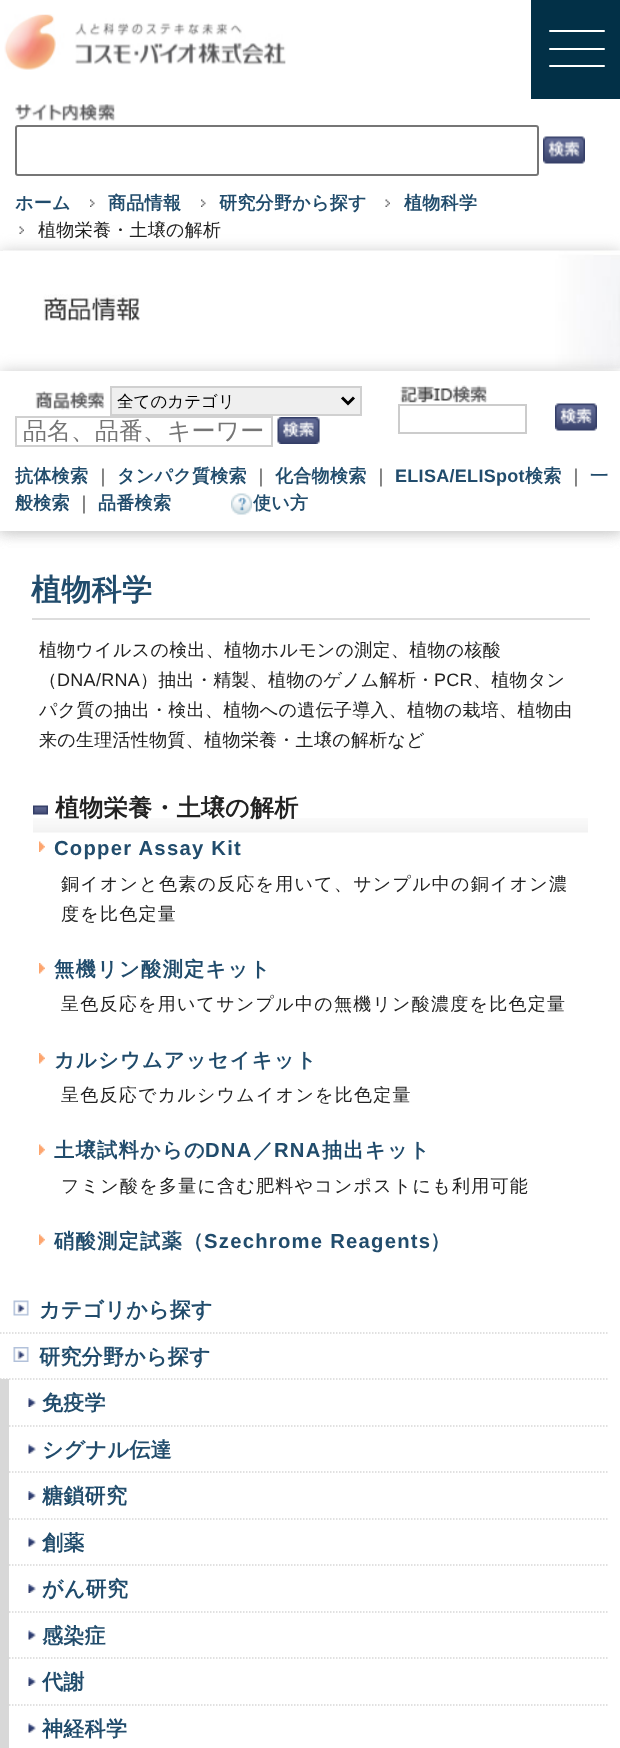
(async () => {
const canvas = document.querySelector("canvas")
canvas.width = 620
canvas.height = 1748
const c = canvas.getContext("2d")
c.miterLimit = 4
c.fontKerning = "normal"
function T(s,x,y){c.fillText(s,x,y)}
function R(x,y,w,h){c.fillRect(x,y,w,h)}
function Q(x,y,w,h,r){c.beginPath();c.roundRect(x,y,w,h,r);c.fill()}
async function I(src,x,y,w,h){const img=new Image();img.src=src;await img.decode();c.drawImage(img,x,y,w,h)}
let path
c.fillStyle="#fff"
R(0,0,620,1748)
await I("1.png",4,14,282,56)
c.fillStyle="#023047"
R(531,0,89,99)
c.fillStyle="#fff"
Q(549,30,56,2,1)
Q(549,48,56,2,1)
Q(549,65,56,2,1)
await I("2.png",15,104,101,17)
c.beginPath()
c.roundRect(16,126,522,49,2)
c.strokeStyle="#767676"
c.lineWidth=2
c.stroke()
await I("3.png",543,136,42,28)
c.letterSpacing="0.3px"
c.font="bold 18px WenQuanYi Zen Hei"
c.fillStyle="#214c6c"
T("ホーム",15,209)
await I("4.png",90,199,5,8)
T("商品情報",108,209)
await I("4.png",201,199,5,8)
T("研究分野から探す",219,209)
await I("5.png",385,199,5,8)
T("植物科学",404,209)
c.save()
path = new Path2D("M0 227h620v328h-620zm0 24h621v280h-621z")
c.clip(path,"evenodd")
c.fillStyle="#ccc"
c.filter="blur(7.5px)"
c.beginPath()
c.rect(0,251,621,280)
c.fill()
c.filter="none"
c.restore()
await I("6.png",19,226,5,8)
c.font="500 18px WenQuanYi Zen Hei"
c.fillStyle="#222"
T("植物栄養・土壌の解析",38,236)
await I("7.png",3,250,617,119)
c.save()
path = new Path2D("M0 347h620v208h-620zm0 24h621v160h-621z")
c.clip(path,"evenodd")
c.fillStyle="#ccc"
c.filter="blur(7.5px)"
c.beginPath()
c.rect(0,371,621,160)
c.fill()
c.filter="none"
c.restore()
await I("8.png",35,391,70,19)
c.fillStyle="#efefef"
c.beginPath()
c.rect(111,387,250,28)
c.fill()
c.strokeStyle="#d0d0d0"
c.stroke()
path = new Path2D("M342 397.5l6 6l6-6")
c.strokeStyle="#000"
c.lineWidth=3
c.stroke(path)
c.letterSpacing="0px"
c.font="500 16.5px WenQuanYi Zen Hei"
c.fillStyle="#000"
T("全てのカテゴリ",117,407)
c.strokeStyle="#d0d0d0"
c.lineWidth=2
c.strokeRect(16,417,256,29)
c.font="500 24px WenQuanYi Zen Hei"
c.fillStyle="#757575"
T("品名、品番、キーワー",23,439)
c.fillStyle="#efefef"
R(319,417,1,27)
await I("9.png",277,417,43,27)
await I("10.png",400,385,88,18)
c.strokeStyle="#ccc"
c.strokeRect(399,405,127,28)
await I("11.png",555,403,42,28)
c.letterSpacing="0.3px"
c.font="bold 18px WenQuanYi Zen Hei"
c.fillStyle="#214c6c"
T("抗体検索",15,482)
c.font="500 18px WenQuanYi Zen Hei"
c.fillStyle="#222"
T("｜",94,482)
c.font="bold 18px WenQuanYi Zen Hei"
c.fillStyle="#214c6c"
T("タンパク質検索",117,482)
c.font="500 18px WenQuanYi Zen Hei"
c.fillStyle="#222"
T("｜",252,482)
c.font="bold 18px WenQuanYi Zen Hei"
c.fillStyle="#214c6c"
T("化合物検索",275,482)
c.font="500 18px WenQuanYi Zen Hei"
c.fillStyle="#222"
T("｜",372,482)
c.font="bold 18px Liberation Sans"
c.fillStyle="#214c6c"
T("ELISA/ELISpot",395,482)
c.font="bold 18px WenQuanYi Zen Hei"
T("検索",525,482)
c.font="500 18px WenQuanYi Zen Hei"
c.fillStyle="#222"
T("｜",567,482)
c.font="bold 18px WenQuanYi Zen Hei"
c.fillStyle="#214c6c"
T("一",590,482)
T("般検索",15,509)
c.font="500 18px WenQuanYi Zen Hei"
c.fillStyle="#222"
T("｜",75,509)
c.font="bold 18px WenQuanYi Zen Hei"
c.fillStyle="#214c6c"
T("品番検索",98,509)
await I("12.png",231,493,21,22)
T("使い方",253,509)
c.fillStyle="#ddd"
R(32,618,558,2)
c.font="bold 30px WenQuanYi Zen Hei"
c.fillStyle="#214c6c"
T("植物科学",31,600)
c.font="500 18px WenQuanYi Zen Hei"
c.fillStyle="#222"
T("植物ウイルスの検出、植物ホルモンの測定、植物の核酸",39,656)
T("（",39,686)
c.font="18px Liberation Sans"
T("DNA/RNA",57,686)
c.font="500 18px WenQuanYi Zen Hei"
T("）抽出・精製、植物のゲノム解析・",140,686)
c.font="18px Liberation Sans"
T("PCR",434,686)
c.font="500 18px WenQuanYi Zen Hei"
T("、植物タン",473,686)
T("パク質の抽出・検出、植物への遺伝子導入、植物の栽培、植物由",39,716)
T("来の生理活性物質、植物栄養・土壌の解析など",39,746)
await I("13.png",33,818,555,15)
await I("14.png",33,805,15,10)
c.font="bold 24px WenQuanYi Zen Hei"
T("植物栄養・土壌の解析",55,816)
await I("15.png",39,841,6,11)
c.letterSpacing="1.25px"
c.font="bold 20.25px Liberation Sans"
c.fillStyle="#214c6c"
T("Copper Assay Kit",54,855)
c.font="500 18px WenQuanYi Zen Hei"
c.fillStyle="#222"
T("銅イオンと色素の反応を用いて、サンプル中の銅イオン濃",61,890)
T("度を比色定量",61,920)
await I("16.png",39,963,6,11)
c.font="bold 20.25px WenQuanYi Zen Hei"
c.fillStyle="#214c6c"
T("無機リン酸測定キット",54,976)
c.font="500 18px WenQuanYi Zen Hei"
c.fillStyle="#222"
T("呈色反応を用いてサンプル中の無機リン酸濃度を比色定量",61,1010)
await I("16.png",39,1053,6,11)
c.font="bold 20.25px WenQuanYi Zen Hei"
c.fillStyle="#214c6c"
T("カルシウムアッセイキット",54,1067)
c.font="500 18px WenQuanYi Zen Hei"
c.fillStyle="#222"
T("呈色反応でカルシウムイオンを比色定量",61,1101)
await I("15.png",39,1144,6,11)
c.font="bold 20.25px WenQuanYi Zen Hei"
c.fillStyle="#214c6c"
T("土壌試料からの",54,1157)
c.font="bold 20.25px Liberation Sans"
T("DNA",205,1157)
c.font="bold 20.25px WenQuanYi Zen Hei"
T("／",253,1157)
c.font="bold 20.25px Liberation Sans"
T("RNA",274,1157)
c.font="bold 20.25px WenQuanYi Zen Hei"
T("抽出キット",322,1157)
c.font="500 18px WenQuanYi Zen Hei"
c.fillStyle="#222"
T("フミン酸を多量に含む肥料やコンポストにも利用可能",61,1192)
await I("15.png",39,1234,6,11)
c.font="bold 20.25px WenQuanYi Zen Hei"
c.fillStyle="#214c6c"
T("硝酸測定試薬（",54,1248)
c.font="bold 20.25px Liberation Sans"
T("Szechrome Reagents",204,1248)
c.font="bold 20.25px WenQuanYi Zen Hei"
T("）",430,1248)
await I("17.png",13,1300,16,16)
c.letterSpacing="0.3px"
c.font="bold 21px WenQuanYi Zen Hei"
T("カテゴリから探す",39,1317)
path = new Path2D("M0 1333h609")
c.strokeStyle="#d8d8d8"
c.lineWidth=1.5
c.setLineDash([1.5,1.5])
c.stroke(path)
await I("18.png",13,1347,16,15)
T("研究分野から探す",39,1364)
path = new Path2D("M0 1379h609")
c.stroke(path)
c.fillStyle="#d8d8d8"
R(0,1379,9,369)
await I("19.png",28,1398,8,9)
c.fillStyle="#214c6c"
T("免疫学",42,1410)
path = new Path2D("M9 1426h600")
c.stroke(path)
await I("20.png",28,1444,8,10)
T("シグナル伝達",42,1457)
path = new Path2D("M9 1472h600")
c.stroke(path)
await I("19.png",28,1491,8,9)
T("糖鎖研究",42,1503)
path = new Path2D("M9 1519h600")
c.stroke(path)
await I("20.png",28,1537,8,10)
T("創薬",42,1550)
path = new Path2D("M9 1565h600")
c.stroke(path)
await I("19.png",28,1584,8,9)
T("がん研究",42,1596)
path = new Path2D("M9 1612h600")
c.stroke(path)
await I("20.png",28,1630,8,10)
T("感染症",42,1643)
path = new Path2D("M9 1658h600")
c.stroke(path)
await I("19.png",28,1677,8,9)
T("代謝",42,1689)
path = new Path2D("M9 1705h600")
c.stroke(path)
await I("20.png",28,1723,8,10)
T("神経科学",42,1736)
})()
